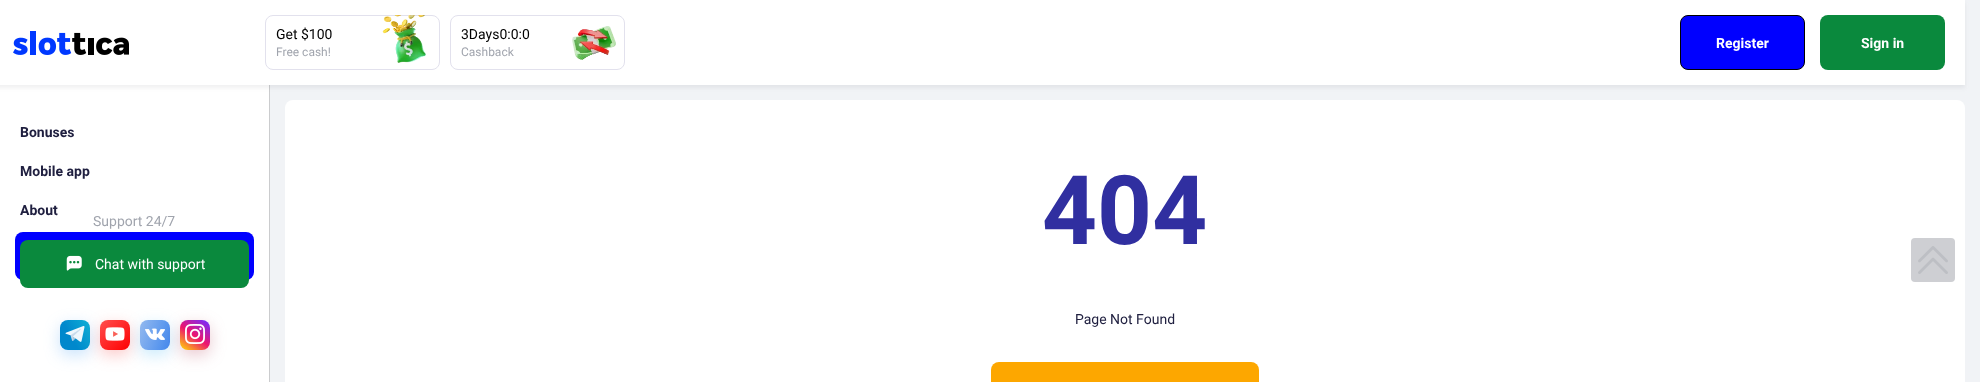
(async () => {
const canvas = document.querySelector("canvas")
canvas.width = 1980
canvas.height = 382
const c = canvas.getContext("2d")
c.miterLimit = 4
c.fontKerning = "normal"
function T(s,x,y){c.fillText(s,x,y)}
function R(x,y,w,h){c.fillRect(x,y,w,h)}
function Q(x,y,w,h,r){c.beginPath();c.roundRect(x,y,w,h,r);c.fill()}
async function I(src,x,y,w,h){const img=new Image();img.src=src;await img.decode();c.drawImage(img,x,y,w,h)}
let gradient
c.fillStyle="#f1f3f6"
R(0,0,1980,382)
c.fillStyle="#fff"
R(0,85,269,297)
c.fillStyle="#cbccce"
R(269,85,1,297)
c.fillStyle="#3f3f4914"
c.filter="blur(2px)"
c.beginPath()
c.rect(-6,3,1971,85)
c.fill()
c.filter="none"
c.fillStyle="#fff"
R(0,0,1965,85)
await I("1.png",13,31,116,24)
c.beginPath()
c.roundRect(265.5,15.5,174,54,7.5)
c.strokeStyle="#e2e1ed"
c.stroke()
c.font="14px Roboto"
c.fillStyle="#000"
T("Get $100",276,39)
await I("2.png",382,15,44,48)
c.font="12px Roboto"
c.fillStyle="#a0a4ad"
T("Free cash!",276,56)
c.beginPath()
c.roundRect(450.5,15.5,174,54,7.5)
c.stroke()
c.font="14px Roboto"
c.fillStyle="#000"
T("3Days0:0:0",461,39)
await I("3.png",572,26,44,34)
c.font="12px Roboto"
c.fillStyle="#a0a4ad"
T("Cashback",461,56)
c.fillStyle="#00f"
c.beginPath()
c.roundRect(1680.5,15.5,124,54,7.5)
c.fill()
c.strokeStyle="#000"
c.stroke()
c.font="bold 14px Roboto"
c.fillStyle="#fff"
T("Register",1716,48)
c.fillStyle="#0a893d"
Q(1820,15,125,55,8)
c.fillStyle="#fff"
T("Sign in",1861,48)
c.fillStyle="#202040"
T("Bonuses",20,137)
T("Mobile app",20,176)
T("About",20,215)
c.font="14px Roboto"
c.fillStyle="#a0a4ad"
T("Support 24/7",93,226)
c.fillStyle="#00f"
Q(15,232,239,48,8)
c.fillStyle="#0a893d"
Q(20,240,229,48,8)
await I("4.png",66,255,16,16)
c.fillStyle="#fff"
T("Chat with support",95,269)
c.fillStyle="#4ca2f64d"
c.filter="blur(8px)"
c.beginPath()
c.roundRect(60,325,30,30,8)
c.fill()
c.filter="none"
gradient = c.createLinearGradient(93,325,57,345)
gradient.addColorStop(0,"#0fb1d6")
gradient.addColorStop(.61,"#08c")
c.fillStyle = gradient
Q(60,320,30,30,8)
c.fillStyle="#f64c4c4d"
c.filter="blur(8px)"
c.beginPath()
c.roundRect(100,325,30,30,8)
c.fill()
c.filter="none"
await I("5.png",65,326,20,16)
gradient = c.createLinearGradient(100,320,130,350)
gradient.addColorStop(0,"#ff4f4f")
gradient.addColorStop(1,"#f00")
c.fillStyle = gradient
Q(100,320,30,30,8)
c.fillStyle="#4cb9f64d"
c.filter="blur(8px)"
c.beginPath()
c.roundRect(140,325,30,30,8)
c.fill()
c.filter="none"
await I("6.png",105,327,20,14)
gradient = c.createLinearGradient(137,329,173,341)
gradient.addColorStop(.03,"#91b8ef")
gradient.addColorStop(1,"#4288ed")
c.fillStyle = gradient
Q(140,320,30,30,8)
c.fillStyle="#ba4d654d"
c.filter="blur(8px)"
c.beginPath()
c.roundRect(180,325,30,30,8)
c.fill()
c.filter="none"
await I("7.png",145,328,20,12)
gradient = c.createLinearGradient(207,318,183,352)
gradient.addColorStop(.08,"#7e2bf4")
gradient.addColorStop(.52,"#ed146e")
gradient.addColorStop(.95,"#ffc90c")
c.fillStyle = gradient
Q(180,320,30,30,8)
await I("8.png",185,324,20,20)
c.fillStyle="#fff"
Q(285,100,1680,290,8)
c.font="bold 96px Roboto"
c.fillStyle="#302fa0"
T("404",1042,244)
c.font="14px Roboto"
c.fillStyle="#202040"
T("Page Not Found",1075,324)
c.fillStyle="#fda700"
Q(991,362,268,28,8)
c.fillStyle="#cecfd3"
Q(1911,238,44,44,4)
await I("9.png",1918,246,30,28)
})()
